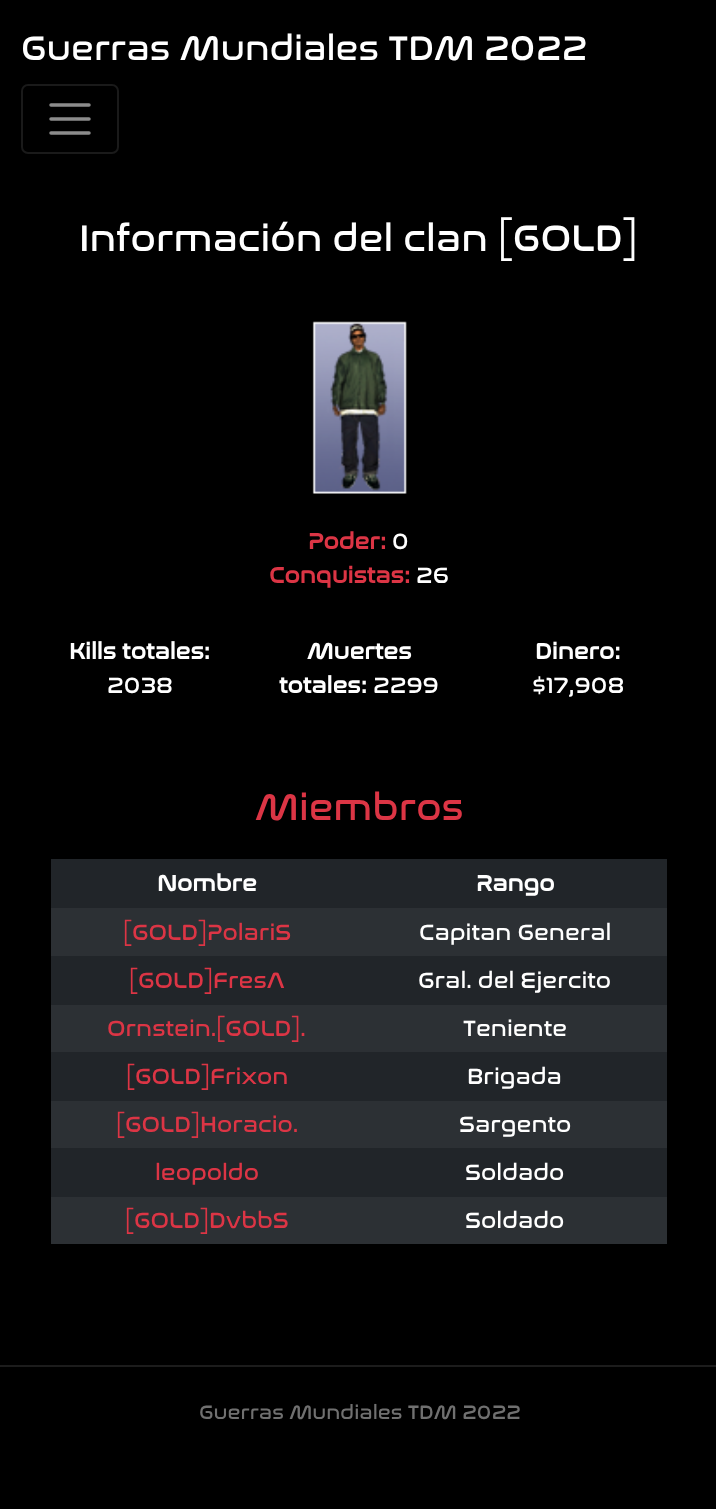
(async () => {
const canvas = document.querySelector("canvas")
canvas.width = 716
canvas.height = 1509
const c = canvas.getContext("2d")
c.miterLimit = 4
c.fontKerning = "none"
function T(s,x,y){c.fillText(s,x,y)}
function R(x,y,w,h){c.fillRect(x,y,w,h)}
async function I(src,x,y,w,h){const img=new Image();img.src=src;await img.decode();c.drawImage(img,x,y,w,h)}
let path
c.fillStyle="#000"
R(0,0,716,1509)
c.font="35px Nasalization"
c.fillStyle="#fff"
T("Guerras Mundiales TDM 2022",21,60)
c.beginPath()
c.roundRect(22,85,96,68,6)
c.strokeStyle="#1a1a1a"
c.lineWidth=2
c.stroke()
path = new Path2D("M51 105h38m-38 14h38m-38 14h38")
c.strokeStyle="#8c8c8c"
c.lineWidth=3.5
c.lineCap="round"
c.stroke(path)
c.font="37.8px Nasalization"
T("Información del clan [GOLD]",79,251)
await I("1.png",312,321,95,173)
c.font="bold 22.75px Nasalization"
c.fillStyle="#dc3545"
T("Poder:",308,549)
c.font="22.75px Nasalization"
c.fillStyle="#fff"
T("0",392,549)
c.font="bold 22.75px Nasalization"
c.fillStyle="#dc3545"
T("Conquistas:",269,583)
c.font="22.75px Nasalization"
c.fillStyle="#fff"
T("26",416,583)
c.font="bold 22.75px Nasalization"
T("Kills totales:",69,659)
c.font="22.75px Nasalization"
T("2038",107,693)
c.font="bold 22.75px Nasalization"
T("Muertes",307,659)
T("totales:",279,693)
c.font="22.75px Nasalization"
T("2299",373,693)
c.font="bold 22.75px Nasalization"
T("Dinero:",535,659)
c.font="22.75px Nasalization"
T("$17,908",532,693)
c.font="37.8px Nasalization"
c.fillStyle="#dc3545"
T("Miembros",255,820)
c.fillStyle="#212529"
R(51,859,616,49)
c.font="bold 22.75px Nasalization"
c.fillStyle="#fff"
T("Nombre",157,891)
T("Rango",476,891)
c.fillStyle="#2c3034"
R(51,908,616,48)
c.font="22.75px Nasalization"
c.fillStyle="#dc3545"
T("[GOLD]PolariS",123,940)
c.fillStyle="#fff"
T("Capitan General",419,940)
c.fillStyle="#212529"
R(51,956,616,49)
c.fillStyle="#dc3545"
T("[GOLD]FresA",129,988)
c.fillStyle="#fff"
T("Gral. del Ejercito",418,988)
c.fillStyle="#2c3034"
R(51,1005,616,47)
c.fillStyle="#dc3545"
T("Ornstein.[GOLD].",107,1036)
c.fillStyle="#fff"
T("Teniente",463,1036)
c.fillStyle="#212529"
R(51,1052,616,49)
c.fillStyle="#dc3545"
T("[GOLD]Frixon",126,1084)
c.fillStyle="#fff"
T("Brigada",467,1084)
c.fillStyle="#2c3034"
R(51,1101,616,47)
c.fillStyle="#dc3545"
T("[GOLD]Horacio.",116,1132)
c.fillStyle="#fff"
T("Sargento",459,1132)
c.fillStyle="#212529"
R(51,1148,616,49)
c.fillStyle="#dc3545"
T("leopoldo",155,1180)
c.fillStyle="#fff"
T("Soldado",465,1180)
c.fillStyle="#2c3034"
R(51,1197,616,47)
c.fillStyle="#dc3545"
T("[GOLD]DvbbS",125,1228)
c.fillStyle="#fff"
T("Soldado",465,1228)
c.fillStyle="#1c1c1c"
R(0,1365,716,2)
c.font="19.9px Nasalization"
c.fillStyle="#707070"
T("Guerras Mundiales TDM 2022",199,1419)
})()
